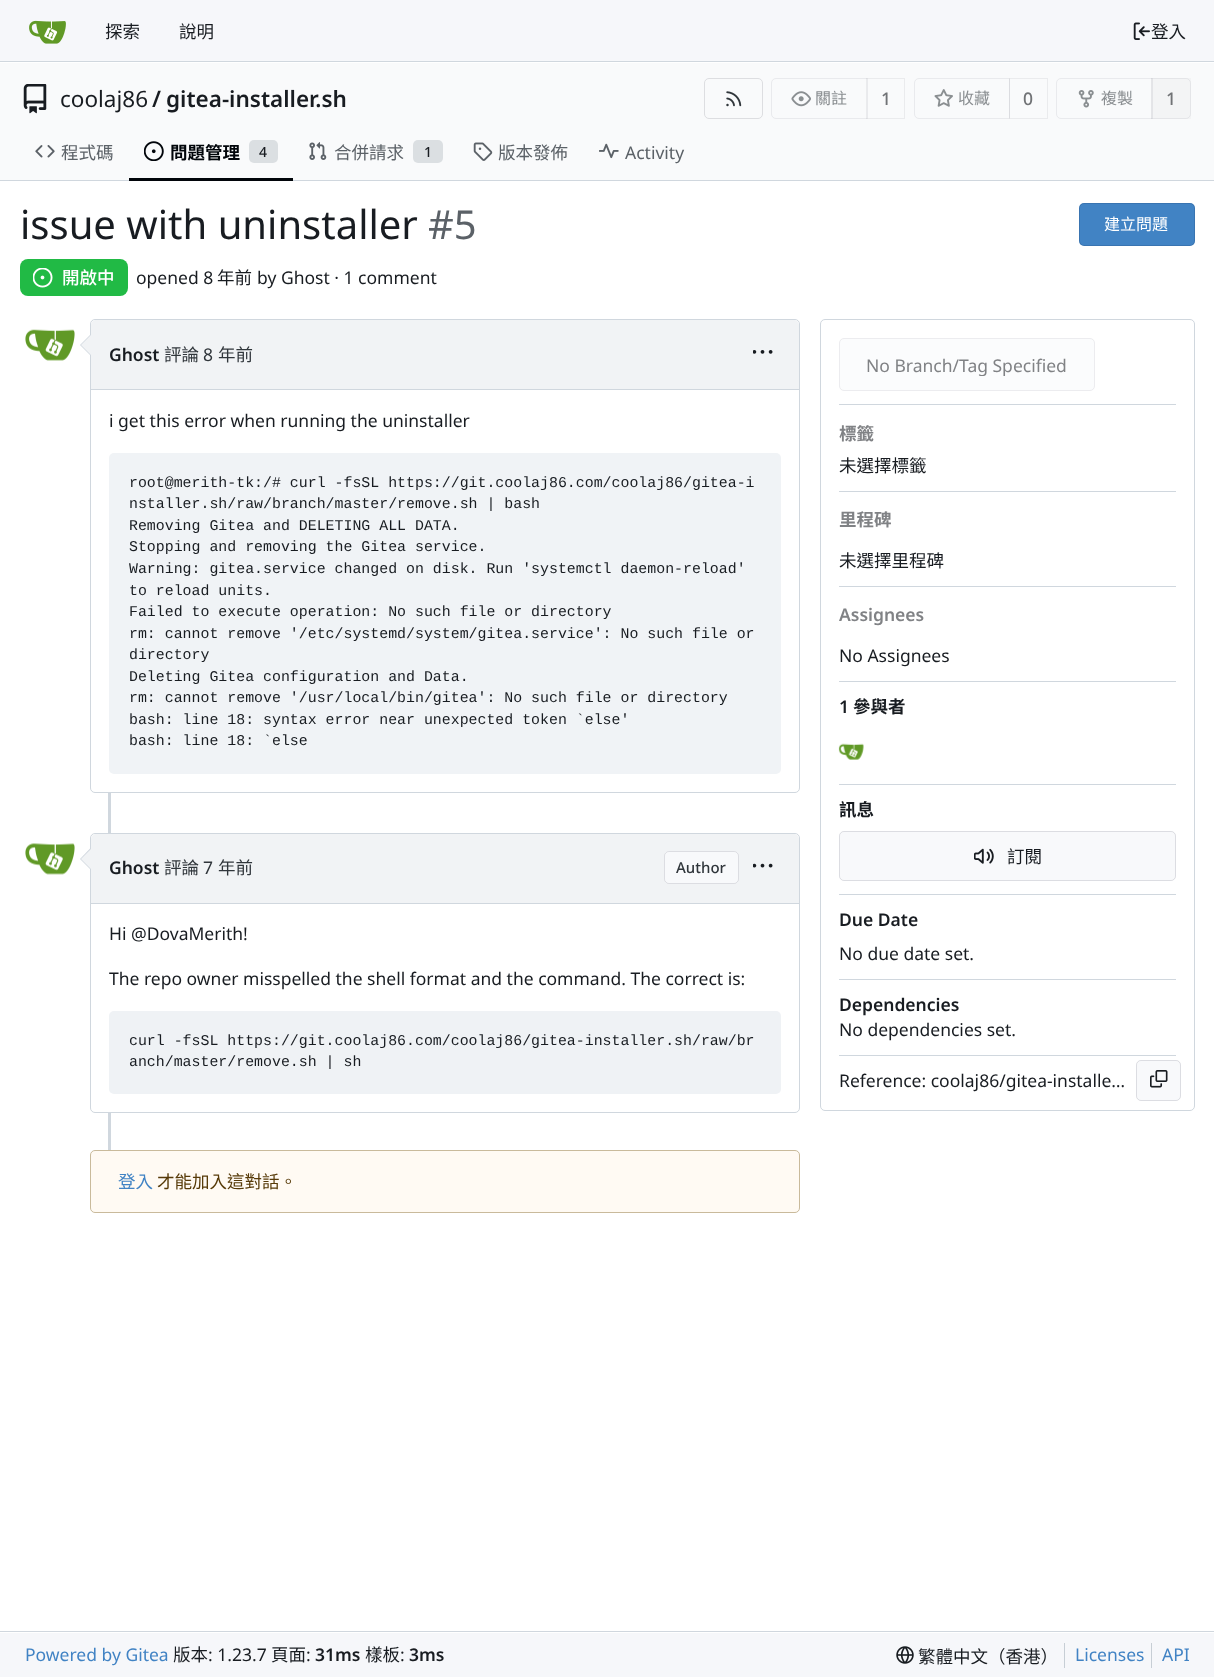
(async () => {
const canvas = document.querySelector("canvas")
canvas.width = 1214
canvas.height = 1677
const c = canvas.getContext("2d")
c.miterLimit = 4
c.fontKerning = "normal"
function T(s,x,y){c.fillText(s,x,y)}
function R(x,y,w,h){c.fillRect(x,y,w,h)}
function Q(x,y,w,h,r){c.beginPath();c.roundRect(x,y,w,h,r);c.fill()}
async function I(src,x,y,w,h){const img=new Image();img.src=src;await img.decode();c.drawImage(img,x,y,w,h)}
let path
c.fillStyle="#fff"
R(0,0,1214,1677)
c.fillStyle="#f6f7fa"
R(0,0,1214,61)
c.fillStyle="#d0d7de"
R(0,61,1214,1)
await I("1.png",29,20,37,24)
c.font="17.5px Noto Sans CJK HK"
c.fillStyle="#181c21"
T("探索",105,38)
T("說明",179,38)
await I("2.png",1133,22,17,18)
T("登入",1151,38)
c.fillStyle="#f9fafb"
R(0,63,1214,117)
await I("3.png",23,84,24,30)
c.font="22.5px Noto Sans"
c.fillStyle="#181c21"
T("coolaj86",60,107)
c.font="600 22.5px Noto Sans"
T("/",152,107)
T("gitea-installer.sh",166,107)
c.beginPath()
c.roundRect(704.5,78.5,58,40,4.5)
c.strokeStyle="#dddee1"
c.stroke()
await I("4.png",726,91,16,16)
c.beginPath()
c.roundRect(771.5,78.5,96,40,[4.5,0,0,4.5])
c.strokeStyle="#e9eaed"
c.stroke()
await I("5.png",791,91,20,16)
c.font="16px Noto Sans CJK HK"
c.fillStyle="#8a8e91"
T("關註",815,104)
c.strokeStyle="#0000170f"
c.strokeRect(866.5,78.5,38,40)
c.font="500 17.5px Noto Sans"
c.fillStyle="#717376"
T("1",881,105)
c.beginPath()
c.roundRect(914.5,78.5,95,40,[4.5,0,0,4.5])
c.strokeStyle="#e9eaed"
c.stroke()
await I("6.png",934,89,19,18)
c.font="16px Noto Sans CJK HK"
c.fillStyle="#8a8e91"
T("收藏",958,104)
c.strokeStyle="#0000170f"
c.strokeRect(1009.5,78.5,38,40)
c.font="500 17.5px Noto Sans"
c.fillStyle="#717376"
T("0",1023,105)
c.beginPath()
c.roundRect(1056.5,78.5,96,40,[4.5,0,0,4.5])
c.strokeStyle="#e9eaed"
c.stroke()
await I("7.png",1078,90,16,18)
c.font="16px Noto Sans CJK HK"
c.fillStyle="#8a8e91"
T("複製",1101,104)
c.fillStyle="#7071710a"
R(1151,78,40,41)
c.beginPath()
c.roundRect(1151.5,78.5,39,40,[0,4.5,4.5,0])
c.strokeStyle="#70717e1c"
c.stroke()
c.font="500 17.5px Noto Sans"
c.fillStyle="#717376"
T("1",1166,105)
await I("8.png",35,145,20,13)
c.font="17.5px Noto Sans CJK HK"
c.fillStyle="#5b6167"
T("程式碼",61,159)
c.fillStyle="#d0d7de"
R(0,180,1214,1)
c.fillStyle="#01050a"
R(129,178,164,3)
await I("9.png",144,141,20,20)
c.font="bold 17.5px Noto Sans CJK HK"
T("問題管理",170,159)
c.fillStyle="#dbdfe2"
Q(249,140,29,23,5)
c.font="500 14px Noto Sans"
c.fillStyle="#181c21"
T("4",259,157)
await I("10.png",309,142,18,18)
c.font="17.5px Noto Sans CJK HK"
c.fillStyle="#5b6167"
T("合併請求",334,159)
c.fillStyle="#dbdfe2"
Q(413,140,30,23,5)
c.font="500 14px Noto Sans"
c.fillStyle="#181c21"
T("1",424,157)
await I("11.png",473,142,20,19)
c.font="17.5px Noto Sans CJK HK"
c.fillStyle="#5b6167"
T("版本發佈",498,159)
await I("12.png",599,143,20,16)
c.font="17.5px Noto Sans"
T("Activity",625,159)
c.font="40px Noto Sans"
c.fillStyle="#181c21"
T("issue with uninstaller",20,239)
c.fillStyle="#5b6167"
T("#5",428,239)
c.fillStyle="#4183c4"
Q(1079,203,116,43,5)
c.beginPath()
c.roundRect(1079.5,203.5,115,42,4.5)
c.strokeStyle="#0000171c"
c.stroke()
c.font="16px Noto Sans CJK HK"
c.fillStyle="#fff"
T("建立問題",1104,230)
c.fillStyle="#21ba45"
Q(20,259,108,37,8)
await I("13.png",33,268,20,20)
c.font="500 17.5px Noto Sans CJK HK"
c.fillStyle="#fff"
T("開啟中",62,284)
c.font="17.5px Noto Sans"
c.fillStyle="#181c21"
T("opened 8",136,284)
c.font="17.5px Noto Sans CJK HK"
T("年前",217,284)
c.font="17.5px Noto Sans"
T("by Ghost · 1 comment",257,284)
await I("14.png",25,329,50,32)
c.beginPath()
c.roundRect(90.5,319.5,709,473,4.5)
c.strokeStyle="#d0d7de"
c.stroke()
c.fillStyle="#f1f3f5"
c.beginPath()
c.roundRect(91,320,708,70,[5,5,0,0])
c.fill()
c.fillStyle="#d0d7de"
R(91,389,708,1)
path = new Path2D("M91 334v22l-11-11z")
c.fill(path)
c.fillStyle="#f1f3f5"
path = new Path2D("M91 335v20l-10-10z")
c.fill(path)
c.font="600 17.5px Noto Sans"
c.fillStyle="#181c21"
T("Ghost",109,361)
c.font="17.5px Noto Sans CJK HK"
c.fillStyle="#30363b"
T("評論",164,361)
c.font="17.5px Noto Sans"
T("8",203,361)
c.font="17.5px Noto Sans CJK HK"
T("年前",218,361)
await I("15.png",753,350,20,4)
c.font="17.5px Noto Sans"
c.fillStyle="#181c21"
T("i get this error when running the uninstaller",109,427)
c.fillStyle="#f0f3f6"
Q(109,453,672,321,5)
c.font="14.9px Liberation Mono"
c.fillStyle="#181c21"
T("root@merith-tk:/# curl -fsSL https://git.coolaj86.com/coolaj86/gitea-i",129,487)
T("nstaller.sh/raw/branch/master/remove.sh | bash",129,508)
T("Removing Gitea and DELETING ALL DATA.",129,530)
T("Stopping and removing the Gitea service.",129,551)
T("Warning: gitea.service changed on disk. Run 'systemctl daemon-reload'",129,573)
T("to reload units.",129,595)
T("Failed to execute operation: No such file or directory",129,616)
T("rm: cannot remove '/etc/systemd/system/gitea.service': No such file or",129,638)
T("directory",129,659)
T("Deleting Gitea configuration and Data.",129,681)
T("rm: cannot remove '/usr/local/bin/gitea': No such file or directory",129,702)
T("bash: line 18: syntax error near unexpected token `else'",129,724)
T("bash: line 18: `else",129,745)
c.fillStyle="#d0d7de"
R(108,793,3,357)
await I("16.png",25,843,50,32)
c.fillStyle="#fff"
c.beginPath()
c.roundRect(90.5,833.5,709,279,4.5)
c.fill()
c.stroke()
c.fillStyle="#f1f3f5"
c.beginPath()
c.roundRect(91,834,708,70,[5,5,0,0])
c.fill()
c.fillStyle="#d0d7de"
R(91,903,708,1)
path = new Path2D("M91 847.5v22.5l-11-11z")
c.fill(path)
c.fillStyle="#f1f3f5"
path = new Path2D("M91 849v20l-10-10z")
c.fill(path)
c.font="600 17.5px Noto Sans"
c.fillStyle="#181c21"
T("Ghost",109,874)
c.font="17.5px Noto Sans CJK HK"
c.fillStyle="#30363b"
T("評論",164,874)
c.font="17.5px Noto Sans"
T("7",203,874)
c.font="17.5px Noto Sans CJK HK"
T("年前",218,874)
c.fillStyle="#f8f9fb"
Q(664,851,75,33,5)
c.beginPath()
c.roundRect(664.5,851.5,74,32,4.5)
c.strokeStyle="#0000171c"
c.stroke()
c.font="500 15px Noto Sans"
c.fillStyle="#30363b"
T("Author",676,873)
await I("17.png",753,863,20,5)
c.font="17.5px Noto Sans"
c.fillStyle="#181c21"
T("Hi @DovaMerith!",109,940)
T("The repo owner misspelled the shell format and the command. The correct is:",109,985)
c.fillStyle="#eff2f5"
Q(109,1011,672,83,5)
c.font="14.9px Liberation Mono"
c.fillStyle="#181c21"
T("curl -fsSL https://git.coolaj86.com/coolaj86/gitea-installer.sh/raw/br",129,1045)
T("anch/master/remove.sh | sh",129,1066)
c.fillStyle="#fffaf3"
c.beginPath()
c.roundRect(90.5,1150.5,709,62,4.5)
c.fill()
c.strokeStyle="#c9ba9b"
c.stroke()
c.font="17.5px Noto Sans CJK HK"
c.fillStyle="#4183c4"
T("登入",118,1188)
c.fillStyle="#573a08"
T("才能加入這對話。",157,1188)
c.beginPath()
c.roundRect(820.5,319.5,374,791,4.5)
c.strokeStyle="#d0d7de"
c.stroke()
c.fillStyle="#fbfcfd"
c.beginPath()
c.roundRect(839.5,338.5,255,52,4.5)
c.fill()
c.strokeStyle="#ececef"
c.stroke()
c.save()
c.beginPath()
c.rect(866,353,202,23)
c.clip()
c.font="17.5px Noto Sans"
c.fillStyle="#808285"
T("No Branch/Tag Specified",866,372)
c.restore()
c.fillStyle="#d0d7de"
R(839,404,337,1)
c.font="bold 17.5px Noto Sans CJK HK"
c.fillStyle="#808285"
T("標籤",839,440)
c.font="17.5px Noto Sans CJK HK"
c.fillStyle="#181c21"
T("未選擇標籤",839,472)
c.fillStyle="#d0d7de"
R(839,491,337,1)
c.font="bold 17.5px Noto Sans CJK HK"
c.fillStyle="#808285"
T("里程碑",839,526)
c.font="17.5px Noto Sans CJK HK"
c.fillStyle="#181c21"
T("未選擇里程碑",839,567)
c.fillStyle="#d0d7de"
R(839,586,337,1)
c.font="600 17.5px Noto Sans"
c.fillStyle="#808285"
T("Assignees",839,621)
c.font="17.5px Noto Sans"
c.fillStyle="#181c21"
T("No Assignees",839,662)
c.fillStyle="#d0d7de"
R(839,681,337,1)
c.font="600 17.5px Noto Sans"
c.fillStyle="#181c21"
T("1",839,713)
c.font="bold 17.5px Noto Sans CJK HK"
T("參與者",853,713)
await I("18.png",838,743,26,17)
c.fillStyle="#d0d7de"
R(839,784,337,1)
c.fillStyle="#181c21"
T("訊息",839,816)
c.fillStyle="#f8f9fb"
Q(839,831,337,50,5)
c.beginPath()
c.roundRect(839.5,831.5,336,49,4.5)
c.strokeStyle="#0000171c"
c.stroke()
await I("19.png",974,848,20,16)
c.font="17.5px Noto Sans CJK HK"
c.fillStyle="#181c21"
T("訂閱",1007,863)
c.fillStyle="#d0d7de"
R(839,894,337,1)
c.font="600 17.5px Noto Sans"
c.fillStyle="#181c21"
T("Due Date",839,926)
c.font="17.5px Noto Sans"
T("No due date set.",839,960)
c.fillStyle="#d0d7de"
R(839,979,337,1)
c.font="600 17.5px Noto Sans"
c.fillStyle="#181c21"
T("Dependencies",839,1011)
c.font="17.5px Noto Sans"
T("No dependencies set.",839,1036)
c.fillStyle="#d0d7de"
R(839,1055,337,1)
c.fillStyle="#181c21"
T("Reference: coolaj86/gitea-installe…",839,1087)
c.fillStyle="#f8f9fb"
Q(1136,1060,45,41,5)
c.beginPath()
c.roundRect(1136.5,1060.5,44,40,4.5)
c.stroke()
await I("20.png",1150,1070,18,18)
c.fillStyle="#f6f7fa"
R(0,1633,1214,44)
c.fillStyle="#d0d7de"
R(0,1631,1214,1)
c.fillStyle="#4183c4"
T("Powered by Gitea",25,1661)
c.font="17.5px Noto Sans CJK HK"
c.fillStyle="#181c21"
T("版本",173,1661)
c.font="17.5px Noto Sans"
T(": 1.23.7",208,1661)
c.font="17.5px Noto Sans CJK HK"
T("頁面",271,1661)
c.font="17.5px Noto Sans"
T(":",306,1661)
c.font="600 17.5px Noto Sans"
T("31ms",315,1661)
c.font="17.5px Noto Sans CJK HK"
T("樣板",365,1661)
c.font="17.5px Noto Sans"
T(":",400,1661)
c.font="600 17.5px Noto Sans"
T("3ms",409,1661)
await I("21.png",896,1646,18,18)
c.font="17.5px Noto Sans CJK HK"
T("繁體中文（香港）",918,1663)
c.fillStyle="#c7ced5"
R(1064,1643,1,25)
c.font="17.5px Noto Sans"
c.fillStyle="#4183c4"
T("Licenses",1075,1661)
c.fillStyle="#c7ced5"
R(1151,1643,1,25)
c.fillStyle="#4183c4"
T("API",1162,1661)
})()
